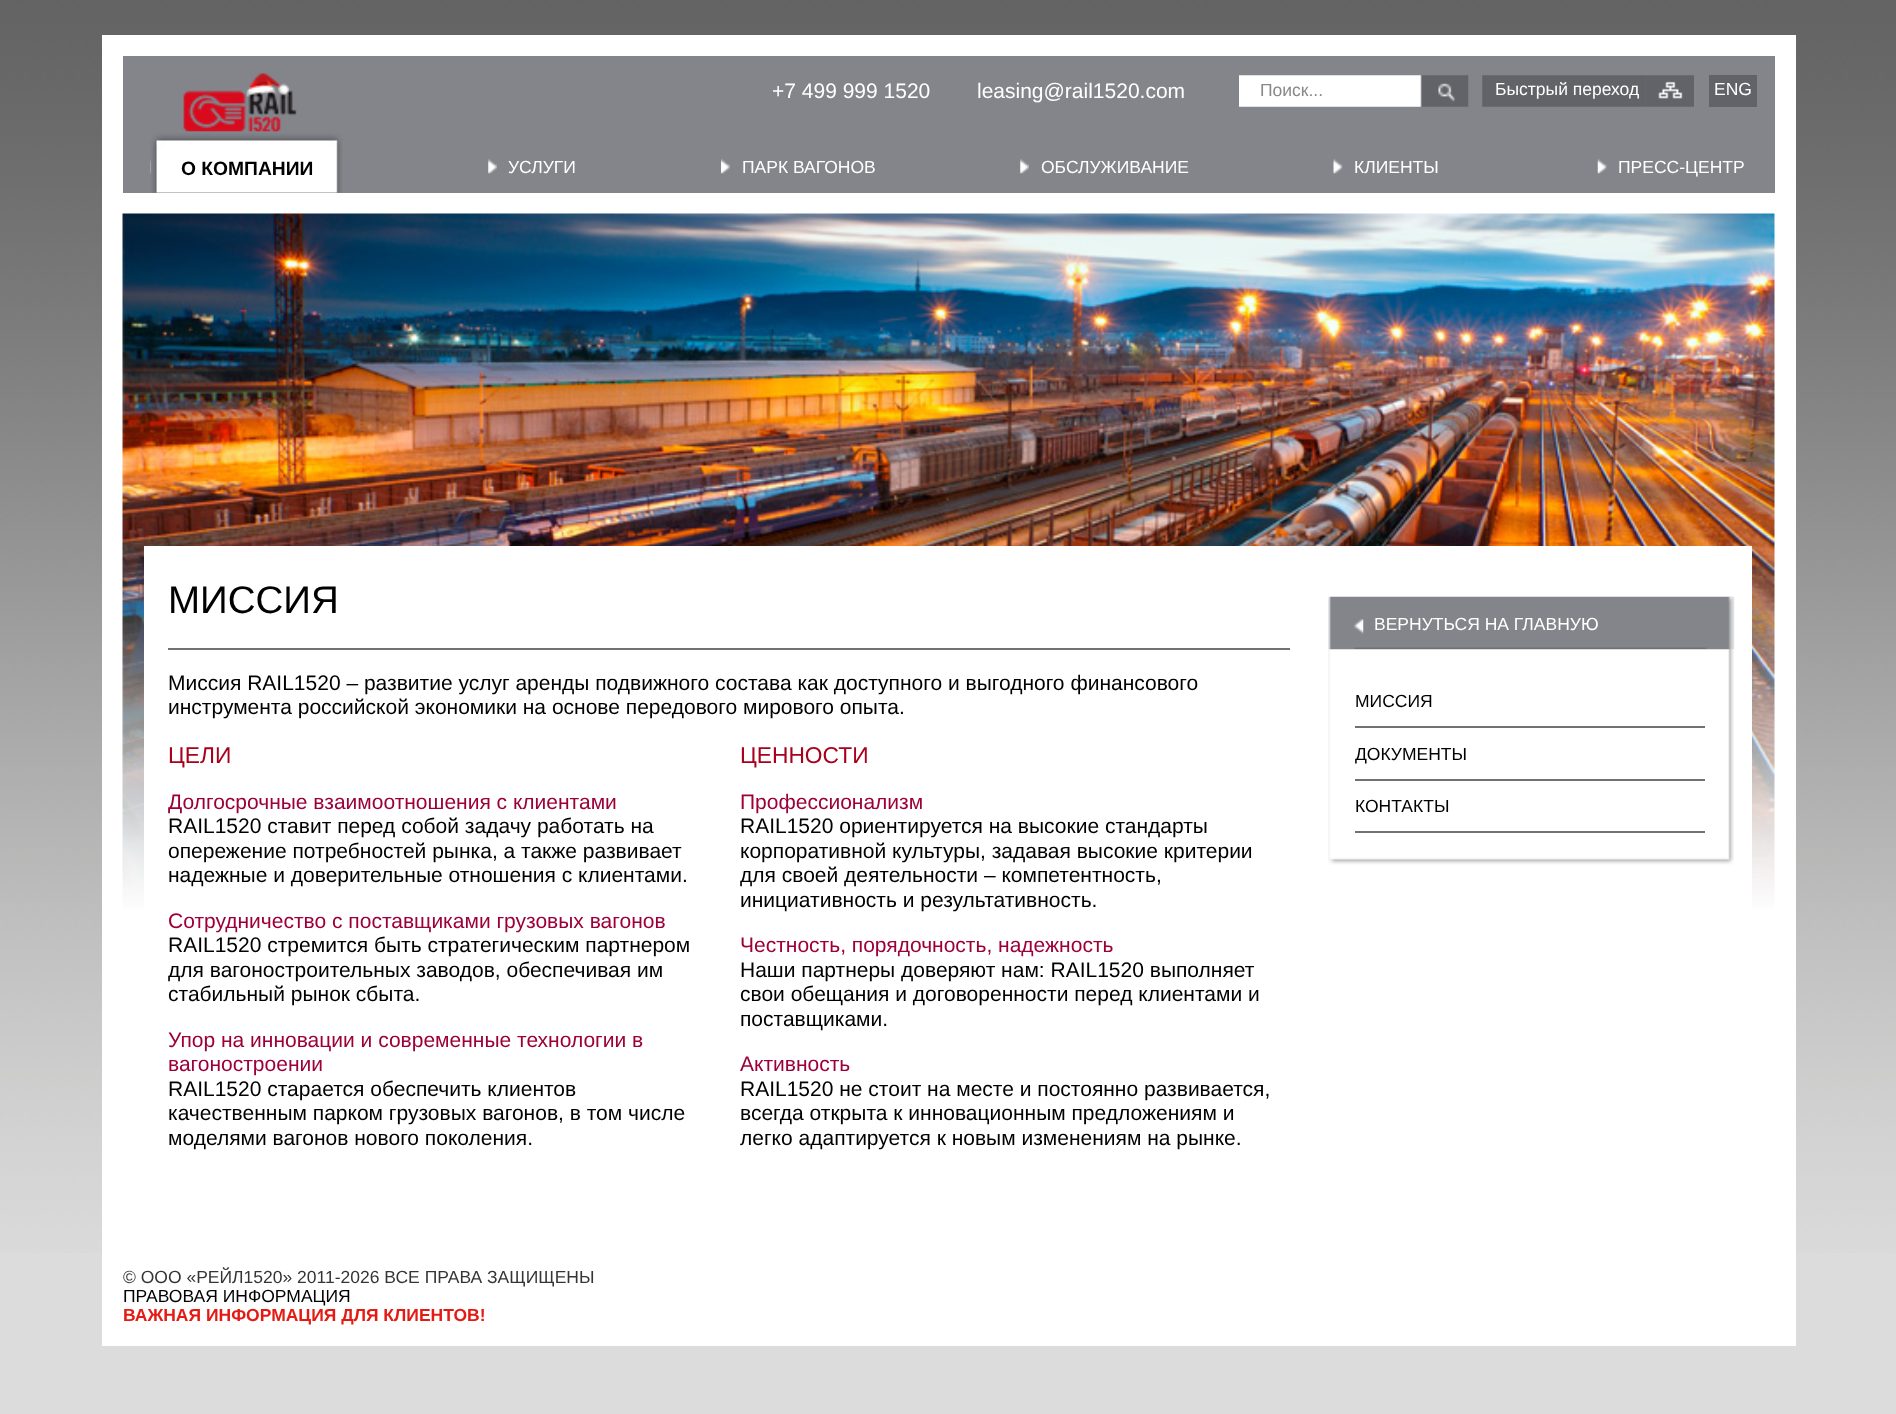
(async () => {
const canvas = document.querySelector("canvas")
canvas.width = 1896
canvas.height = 1414
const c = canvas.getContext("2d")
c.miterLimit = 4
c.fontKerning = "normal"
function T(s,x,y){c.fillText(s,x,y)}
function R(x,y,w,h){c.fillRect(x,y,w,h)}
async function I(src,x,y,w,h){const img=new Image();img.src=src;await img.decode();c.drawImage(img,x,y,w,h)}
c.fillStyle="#dcdcdc"
R(0,0,1896,1414)
await I("1.png",0,0,1896,1253)
c.fillStyle="#fff"
R(102,35,1694,1311)
c.fillStyle="#83858b"
R(123,56,1652,137)
await I("2.png",183,73,114,59)
c.font="21px Liberation Sans"
c.fillStyle="#fff"
T("+7 499 999 1520",772,98)
T("leasing@rail1520.com",977,98)
await I("3.png",1239,75,230,32)
c.font="17.5px Liberation Sans"
c.fillStyle="#888"
T("Поиск...",1260,96)
await I("4.png",1482,75,212,32)
c.fillStyle="#fff"
T("Быстрый переход",1495,95)
c.fillStyle="#616369"
R(1709,75,48,32)
c.fillStyle="#fff"
T("ENG",1714,95)
await I("5.png",150,159,1,15)
await I("6.png",150,133,193,60)
c.font="bold 19.25px Liberation Sans"
c.fillStyle="#000"
T("О КОМПАНИИ",181,175)
await I("7.png",488,159,9,15)
c.font="17.5px Liberation Sans"
c.fillStyle="#fff"
T("УСЛУГИ",508,173)
await I("8.png",721,159,9,15)
T("ПАРК ВАГОНОВ",742,173)
await I("7.png",1020,159,9,15)
T("ОБСЛУЖИВАНИЕ",1041,173)
await I("9.png",1333,159,10,15)
T("КЛИЕНТЫ",1354,173)
await I("10.png",1597,159,10,15)
T("ПРЕСС-ЦЕНТР",1618,173)
await I("11.png",122,213,1653,696)
R(144,546,1608,363)
c.fillStyle="#6e7275"
R(168,648,1122,2)
c.font="38.5px Liberation Sans"
c.fillStyle="#000"
T("МИССИЯ",168,613)
c.font="21px Liberation Sans"
T("Миссия RAIL1520 – развитие услуг аренды подвижного состава как доступного и выгодного финансового",168,690)
T("инструмента российской экономики на основе передового мирового опыта.",168,714)
c.font="22.75px Liberation Sans"
c.fillStyle="#a9001b"
T("ЦЕЛИ",168,763)
c.font="21px Liberation Sans"
c.fillStyle="#9d0039"
T("Долгосрочные взаимоотношения с клиентами",168,809)
c.fillStyle="#000"
T("RAIL1520 ставит перед собой задачу работать на",168,833)
T("опережение потребностей рынка, а также развивает",168,858)
T("надежные и доверительные отношения с клиентами.",168,882)
c.fillStyle="#9d0039"
T("Сотрудничество с поставщиками грузовых вагонов",168,928)
c.fillStyle="#000"
T("RAIL1520 стремится быть стратегическим партнером",168,952)
T("для вагоностроительных заводов, обеспечивая им",168,977)
T("стабильный рынок сбыта.",168,1001)
c.fillStyle="#9d0039"
T("Упор на инновации и современные технологии в",168,1047)
T("вагоностроении",168,1071)
c.fillStyle="#000"
T("RAIL1520 старается обеспечить клиентов",168,1096)
T("качественным парком грузовых вагонов, в том числе",168,1120)
T("моделями вагонов нового поколения.",168,1145)
c.font="22.75px Liberation Sans"
c.fillStyle="#a9001b"
T("ЦЕННОСТИ",740,763)
c.font="21px Liberation Sans"
c.fillStyle="#9d0039"
T("Профессионализм",740,809)
c.fillStyle="#000"
T("RAIL1520 ориентируется на высокие стандарты",740,833)
T("корпоративной культуры, задавая высокие критерии",740,858)
T("для своей деятельности – компетентность,",740,882)
T("инициативность и результативность.",740,907)
c.fillStyle="#9d0039"
T("Честность, порядочность, надежность",740,952)
c.fillStyle="#000"
T("Наши партнеры доверяют нам: RAIL1520 выполняет",740,977)
T("свои обещания и договоренности перед клиентами и",740,1001)
T("поставщиками.",740,1026)
c.fillStyle="#9d0039"
T("Активность",740,1071)
c.fillStyle="#000"
T("RAIL1520 не стоит на месте и постоянно развивается,",740,1096)
T("всегда открыта к инновационным предложениям и",740,1120)
T("легко адаптируется к новым изменениям на рынке.",740,1145)
await I("12.png",1328,596,406,264)
await I("13.png",1328,596,407,54)
await I("14.png",1354,619,10,15)
c.font="17.5px Liberation Sans"
c.fillStyle="#fff"
T("ВЕРНУТЬСЯ НА ГЛАВНУЮ",1374,630)
c.fillStyle="#6e7275"
R(1355,726,350,2)
c.fillStyle="#000"
T("МИССИЯ",1355,707)
c.fillStyle="#6e7275"
R(1355,779,350,2)
c.fillStyle="#000"
T("ДОКУМЕНТЫ",1355,760)
c.fillStyle="#6e7275"
R(1355,831,350,2)
c.fillStyle="#000"
T("КОНТАКТЫ",1355,812)
await I("15.png",1328,857,406,8)
c.fillStyle="#363535"
T("© OOО «РЕЙЛ1520» 2011-2026 ВСЕ ПРАВА ЗАЩИЩЕНЫ",123,1283)
c.fillStyle="#000"
T("ПРАВОВАЯ ИНФОРМАЦИЯ",123,1302)
c.font="bold 17.5px Liberation Sans"
c.fillStyle="#e41b13"
T("ВАЖНАЯ ИНФОРМАЦИЯ ДЛЯ КЛИЕНТОВ!",123,1321)
})()
